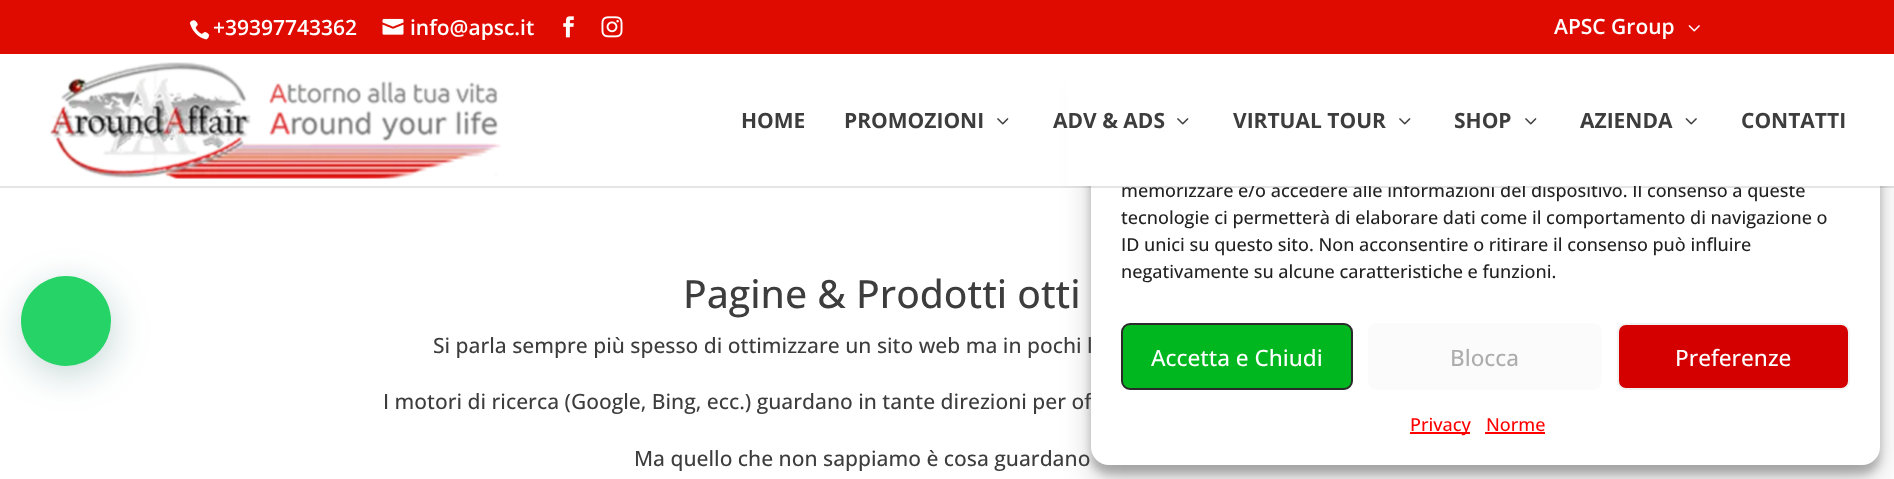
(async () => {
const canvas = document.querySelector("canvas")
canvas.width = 1894
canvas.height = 479
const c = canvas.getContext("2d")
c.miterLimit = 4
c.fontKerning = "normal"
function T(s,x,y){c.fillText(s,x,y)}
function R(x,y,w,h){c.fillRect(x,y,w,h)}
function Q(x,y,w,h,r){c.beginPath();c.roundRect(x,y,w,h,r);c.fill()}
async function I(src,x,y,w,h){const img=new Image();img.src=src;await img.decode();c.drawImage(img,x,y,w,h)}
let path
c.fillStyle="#fff"
R(0,0,1894,479)
c.fillStyle="#00000030"
c.filter="blur(15px)"
c.beginPath()
c.roundRect(1091,77,789,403,18)
c.fill()
c.filter="none"
c.fillStyle="#e00b00"
R(0,0,1894,54)
await I("1.png",189,20,21,20)
c.font="600 21px Open Sans"
c.fillStyle="#fff"
T("+39397743362",213,35)
await I("2.png",382,18,22,17)
T("info@apsc.it",410,35)
await I("3.png",563,16,11,22)
await I("4.png",601,16,22,22)
T("APSC Group",1554,34)
await I("5.png",1688,25,12,7)
c.fillStyle="#0000003b"
c.filter="blur(4.5px)"
c.beginPath()
c.roundRect(1091,71,789,403,18)
c.fill()
c.filter="none"
c.font="500 21px Open Sans"
c.fillStyle="#3d3d3d"
T("I motori di ricerca (Google, Bing, ecc.) guardano in tante direzioni per of",383,409)
c.fillStyle="#fff"
Q(1091,62,789,403,18)
c.fillStyle="#0000001a"
path = new Path2D("M0 186v2h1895v-132h-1v130z")
c.fill(path)
c.font="500 18px Open Sans"
c.fillStyle="#222"
T("memorizzare e/o accedere alle informazioni del dispositivo. Il consenso a queste",1121,197)
c.fillStyle="#fff"
R(1067,54,827,132)
await I("6.png",50,62,451,117)
c.font="bold 21px Open Sans"
c.fillStyle="#3d3d3d"
T("HOME",741,128)
T("PROMOZIONI",844,128)
await I("7.png",997,118,12,7)
T("ADV & ADS",1053,128)
await I("7.png",1177,118,12,7)
T("VIRTUAL TOUR",1233,128)
await I("7.png",1399,118,12,7)
T("SHOP",1454,128)
await I("7.png",1525,118,12,7)
T("AZIENDA",1580,128)
await I("8.png",1685,118,12,7)
T("CONTATTI",1741,128)
c.font="500 39px Open Sans"
T("Pagine & Prodotti otti",683,308)
c.font="500 21px Open Sans"
T("Si parla sempre più spesso di ottimizzare un sito web ma in pochi l",433,353)
T("Ma quello che non sappiamo è cosa guardano",634,466)
c.fillStyle="#075e543d"
c.filter="blur(18px)"
c.beginPath()
c.roundRect(23,285,90,90,45)
c.fill()
c.filter="none"
c.fillStyle="#25d366"
c.beginPath()
c.arc(66,321,45,0,7)
c.fill()
c.font="500 18px Open Sans"
c.fillStyle="#222"
T("tecnologie ci permetterà di elaborare dati come il comportamento di navigazione o",1121,224)
T("ID unici su questo sito. Non acconsentire o ritirare il consenso può influire",1121,251)
T("negativamente su alcune caratteristiche e funzioni.",1121,278)
c.fillStyle="#00b71f"
c.beginPath()
c.roundRect(1122,324,230,65,8)
c.fill()
c.strokeStyle="#2b2b2b"
c.lineWidth=2
c.stroke()
c.font="500 22.5px Open Sans"
c.fillStyle="#fff"
T("Accetta e Chiudi",1151,366)
c.fillStyle="#fbfbfb"
Q(1368,323,234,67,9)
c.fillStyle="#adadad"
T("Blocca",1450,366)
c.fillStyle="#d40000"
c.beginPath()
c.roundRect(1618,324,231,65,8)
c.fill()
c.strokeStyle="#f2f2f2"
c.stroke()
c.fillStyle="#fff"
T("Preferenze",1675,366)
c.fillStyle="#f00"
R(1410,432,60,2)
c.font="500 18px Open Sans"
T("Privacy",1410,431)
T("Norme",1486,431)
R(1485,432,60,2)
})()
